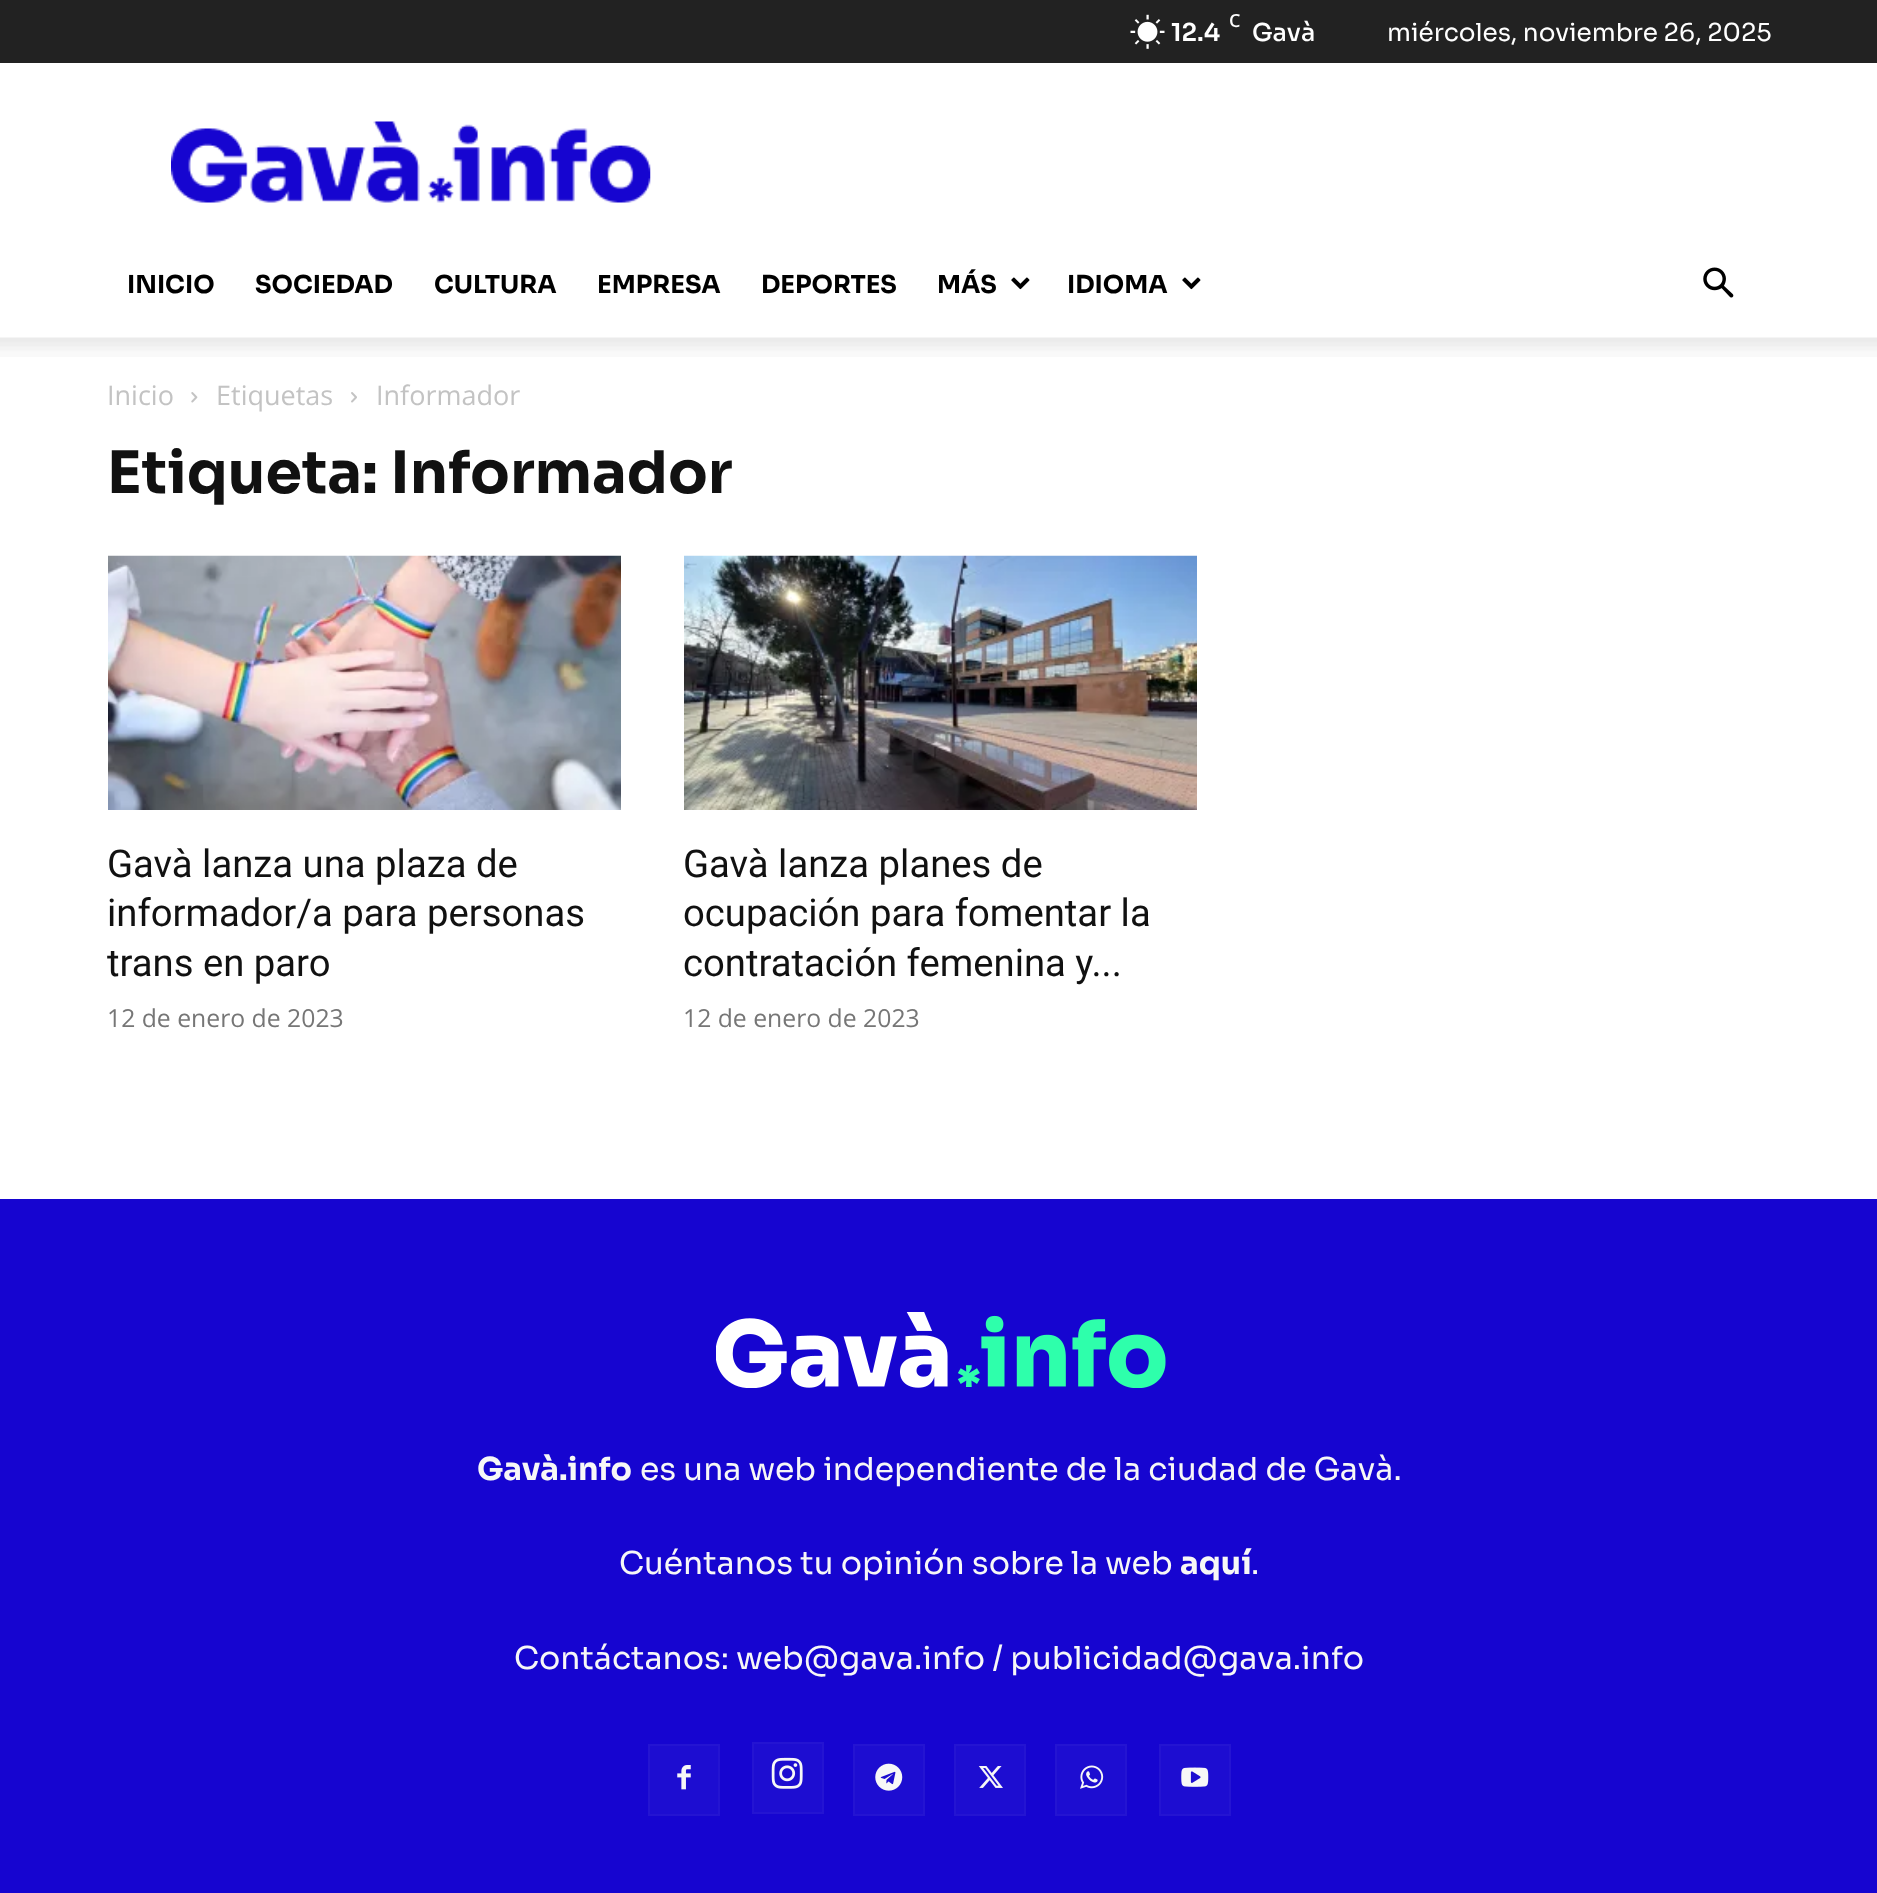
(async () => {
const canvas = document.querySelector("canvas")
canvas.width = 1877
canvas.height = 1893
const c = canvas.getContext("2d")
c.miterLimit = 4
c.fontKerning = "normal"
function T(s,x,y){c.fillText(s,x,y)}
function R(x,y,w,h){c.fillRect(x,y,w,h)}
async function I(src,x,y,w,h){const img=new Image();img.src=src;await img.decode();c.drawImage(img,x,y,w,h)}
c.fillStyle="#fff"
R(0,0,1877,1893)
c.fillStyle="#222"
R(0,0,1877,63)
await I("1.png",1130,14,35,35)
c.font="600 18px Open Sans"
c.fillStyle="#fff"
T("C",1229,27)
c.font="600 24.75px Sora"
T("12.4",1171,41)
c.font="500 24.75px Sora"
T("Gavà",1252,41)
c.font="24.75px Sora"
T("miércoles, noviembre 26, 2025",1387,41)
await I("2.png",171,121,480,82)
c.font="bold 24.75px Sora"
c.fillStyle="#000"
T("INICIO",127,293)
T("SOCIEDAD",255,293)
T("CULTURA",434,293)
T("EMPRESA",597,293)
T("DEPORTES",761,293)
T("MÁS",937,293)
await I("3.png",1011,277,19,13)
T("IDIOMA",1067,293)
await I("3.png",1182,277,19,13)
await I("4.png",1703,267,31,31)
await I("5.png",0,337,1877,20)
c.font="27px Open Sans"
c.fillStyle="#c3c3c3"
T("Inicio",107,405)
await I("6.png",191,392,7,11)
T("Etiquetas",216,405)
await I("7.png",351,392,6,11)
T("Informador",376,405)
c.font="bold 58.5px Sora"
c.fillStyle="#111"
T("Etiqueta: Informador",107,493)
await I("8.png",108,555,513,255)
c.font="38.25px Roboto"
T("Gavà lanza una plaza de",107,877)
T("informador/a para personas",107,926)
T("trans en paro",107,976)
c.font="24.75px Open Sans"
c.fillStyle="#767676"
T("12 de enero de 2023",107,1027)
await I("9.png",684,555,513,255)
c.font="38.25px Roboto"
c.fillStyle="#111"
T("Gavà lanza planes de",683,877)
T("ocupación para fomentar la",683,926)
T("contratación femenina y...",683,976)
c.font="24.75px Open Sans"
c.fillStyle="#767676"
T("12 de enero de 2023",683,1027)
c.fillStyle="#1605d0"
R(0,1199,1877,694)
await I("10.png",716,1312,450,76)
c.font="bold 31.5px Sora"
c.fillStyle="#f7f7f7"
T("Gavà.info",477,1480)
c.font="31.5px Sora"
T("es una web independiente de la ciudad de Gavà.",640,1480)
T("Cuéntanos tu opinión sobre la web",619,1574)
c.font="bold 31.5px Sora"
T("aquí",1180,1574)
c.font="31.5px Sora"
T(".",1251,1574)
T("Contáctanos: web@gava.info / publicidad@gava.info",514,1669)
c.fillStyle="#1d0dd1"
R(650,1746,68,68)
await I("11.png",677,1765,14,25)
c.strokeStyle="#2414d2"
c.lineWidth=2
c.strokeRect(649,1745,70,70)
R(754,1744,68,68)
await I("12.png",771,1757,32,32)
c.strokeRect(753,1743,70,70)
R(855,1746,68,68)
await I("13.png",875,1763,28,28)
c.strokeRect(854,1745,70,70)
R(956,1746,68,68)
await I("14.png",978,1766,25,22)
c.strokeRect(955,1745,70,70)
R(1057,1746,68,68)
await I("15.png",1080,1765,24,24)
c.strokeRect(1056,1745,70,70)
R(1161,1746,68,68)
await I("16.png",1181,1767,28,20)
c.strokeRect(1160,1745,70,70)
})()
